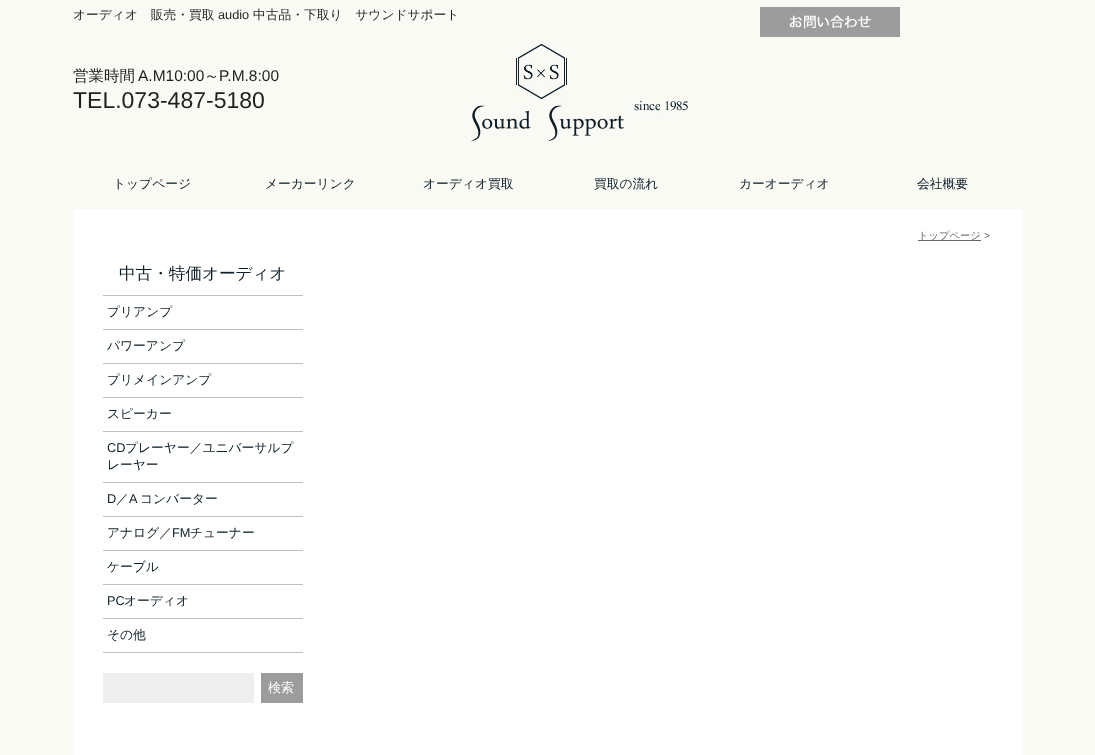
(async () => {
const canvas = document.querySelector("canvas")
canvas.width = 1095
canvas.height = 755
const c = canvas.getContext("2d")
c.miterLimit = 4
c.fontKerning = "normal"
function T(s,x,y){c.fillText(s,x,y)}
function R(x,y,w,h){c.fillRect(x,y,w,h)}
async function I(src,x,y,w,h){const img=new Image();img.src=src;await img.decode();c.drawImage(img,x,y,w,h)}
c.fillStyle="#fafaf5"
R(0,0,1095,755)
c.font="500 12.75px WenQuanYi Zen Hei"
c.fillStyle="#1f1f1f"
T("オーディオ　販売・買取",73,19)
c.font="12.75px Liberation Sans"
T("audio",218,19)
c.font="500 12.75px WenQuanYi Zen Hei"
T("中古品・下取り　サウンドサポート",253,19)
await I("1.png",760,7,140,30)
c.font="500 15.5px WenQuanYi Zen Hei"
T("営業時間",73,81)
c.font="15.5px Liberation Sans"
T("A.M10:00",138,81)
c.font="500 15.5px WenQuanYi Zen Hei"
T("～",204,81)
c.font="15.5px Liberation Sans"
T("P.M.8:00",219,81)
c.font="23px Liberation Sans"
T("TEL.073-487-5180",73,108)
await I("2.png",471,44,217,98)
c.font="500 12.75px WenQuanYi Zen Hei"
c.fillStyle="#0c1e27"
T("トップページ",113,188)
T("メーカーリンク",265,188)
T("オーディオ買取",423,188)
T("買取の流れ",594,188)
T("カーオーディオ",739,188)
T("会社概要",917,188)
c.fillStyle="#fff"
R(73,209,950,546)
c.fillStyle="#666"
R(918,240,63,1)
c.font="500 10.25px WenQuanYi Zen Hei"
T("トップページ",918,239)
c.font="10.25px Liberation Sans"
T(">",984,239)
c.fillStyle="#c0c0c0"
R(103,295,200,1)
c.font="500 16.6px WenQuanYi Zen Hei"
c.fillStyle="#0c1e27"
T("中古・特価オーディオ",119,279)
c.fillStyle="#c0c0c0"
R(103,329,200,1)
c.font="500 12.75px WenQuanYi Zen Hei"
c.fillStyle="#0c1e27"
T("プリアンプ",107,316)
c.fillStyle="#c0c0c0"
R(103,363,200,1)
c.fillStyle="#0c1e27"
T("パワーアンプ",107,350)
c.fillStyle="#c0c0c0"
R(103,397,200,1)
c.fillStyle="#0c1e27"
T("プリメインアンプ",107,384)
c.fillStyle="#c0c0c0"
R(103,431,200,1)
c.fillStyle="#0c1e27"
T("スピーカー",107,418)
c.fillStyle="#c0c0c0"
R(103,482,200,1)
c.font="12.75px Liberation Sans"
c.fillStyle="#0c1e27"
T("CD",107,452)
c.font="500 12.75px WenQuanYi Zen Hei"
T("プレーヤー／ユニバーサルプ",125,452)
T("レーヤー",107,469)
c.fillStyle="#c0c0c0"
R(103,516,200,1)
c.font="12.75px Liberation Sans"
c.fillStyle="#0c1e27"
T("D",107,503)
c.font="500 12.75px WenQuanYi Zen Hei"
T("／",116,503)
c.font="12.75px Liberation Sans"
T("A",129,503)
c.font="500 12.75px WenQuanYi Zen Hei"
T("コンバーター",140,503)
c.fillStyle="#c0c0c0"
R(103,550,200,1)
c.fillStyle="#0c1e27"
T("アナログ／",107,537)
c.font="12.75px Liberation Sans"
T("FM",172,537)
c.font="500 12.75px WenQuanYi Zen Hei"
T("チューナー",190,537)
c.fillStyle="#c0c0c0"
R(103,584,200,1)
c.fillStyle="#0c1e27"
T("ケーブル",107,571)
c.fillStyle="#c0c0c0"
R(103,618,200,1)
c.font="12.75px Liberation Sans"
c.fillStyle="#0c1e27"
T("PC",107,605)
c.font="500 12.75px WenQuanYi Zen Hei"
T("オーディオ",124,605)
c.fillStyle="#c0c0c0"
R(103,652,200,1)
c.fillStyle="#0c1e27"
T("その他",107,639)
c.fillStyle="#eee"
R(103,673,151,30)
c.fillStyle="#9c9c9c"
R(261,673,42,30)
c.font="500 13px WenQuanYi Zen Hei"
c.fillStyle="#fff"
T("検索",268,692)
})()
